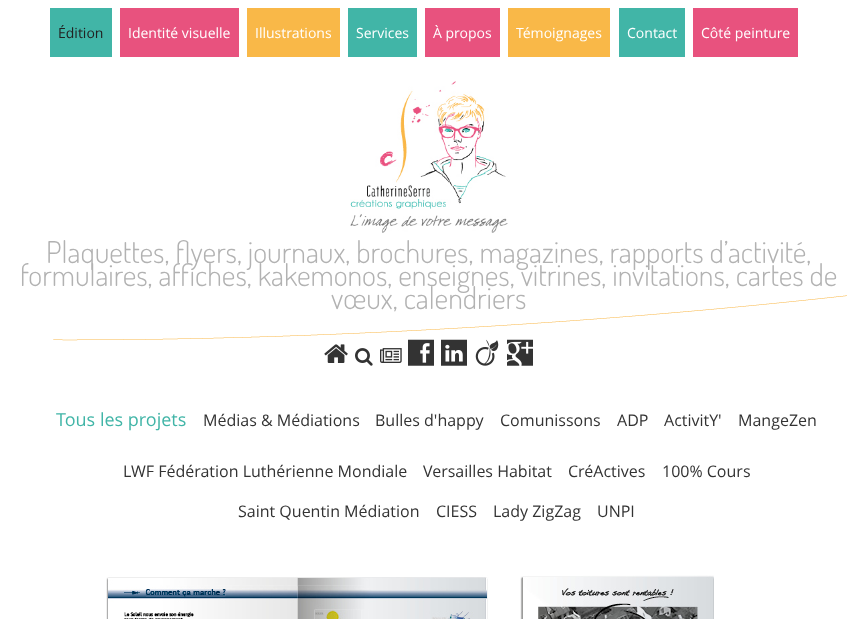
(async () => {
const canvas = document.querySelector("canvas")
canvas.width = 857
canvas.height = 619
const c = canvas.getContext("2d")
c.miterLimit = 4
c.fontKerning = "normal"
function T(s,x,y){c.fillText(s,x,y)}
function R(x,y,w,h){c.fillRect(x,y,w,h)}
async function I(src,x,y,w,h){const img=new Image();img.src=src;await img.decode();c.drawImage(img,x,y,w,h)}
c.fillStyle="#fff"
R(0,0,857,619)
c.fillStyle="#41b5a7"
R(50,8,62,49)
c.font="14px Open Sans"
c.fillStyle="#222"
T("Édition",58,38)
c.fillStyle="#e8527e"
R(120,8,119,49)
c.fillStyle="#fff"
T("Identité visuelle",128,38)
c.fillStyle="#f9b848"
R(247,8,93,49)
c.fillStyle="#fff"
T("Illustrations",255,38)
c.fillStyle="#41b5a7"
R(348,8,69,49)
c.fillStyle="#fff"
T("Services",356,38)
c.fillStyle="#e8527e"
R(425,8,75,49)
c.fillStyle="#fff"
T("À propos",433,38)
c.fillStyle="#f9b848"
R(508,8,102,49)
c.fillStyle="#fff"
T("Témoignages",516,38)
c.fillStyle="#41b5a7"
R(619,8,66,49)
c.fillStyle="#fff"
T("Contact",627,38)
c.fillStyle="#e8527e"
R(693,8,105,49)
c.fillStyle="#fff"
T("Côté peinture",701,38)
await I("1.png",53,295,794,46)
await I("2.png",350,81,158,152)
c.font="300 30px Dosis"
c.fillStyle="#b2b2b2"
T("Plaquettes, flyers, journaux, brochures, magazines, rapports d’activité,",46,263)
T("formulaires, affiches, kakemonos, enseignes, vitrines, invitations, cartes de",20,286)
T("vœux, calendriers",331,309)
await I("3.png",324,344,24,19)
await I("4.png",355,348,18,18)
await I("5.png",380,348,22,15)
await I("6.png",408,339,26,27)
await I("7.png",441,339,26,27)
await I("8.png",475,339,24,27)
await I("9.png",507,339,26,27)
c.font="18px Open Sans"
c.fillStyle="#41b5a7"
T("Tous les projets",56,426)
c.font="16px Open Sans"
c.fillStyle="#333"
T("Médias & Médiations",203,426)
T("Bulles d'happy",375,426)
T("Comunissons",500,426)
T("ADP",617,426)
T("ActivitY'",664,426)
T("MangeZen",738,426)
T("LWF Fédération Luthérienne Mondiale",123,477)
T("Versailles Habitat",423,477)
T("CréActives",568,477)
T("100% Cours",662,477)
T("Saint Quentin Médiation",238,517)
T("CIESS",436,517)
T("Lady ZigZag",493,517)
T("UNPI",597,517)
await I("10.png",106,575,608,44)
})()
